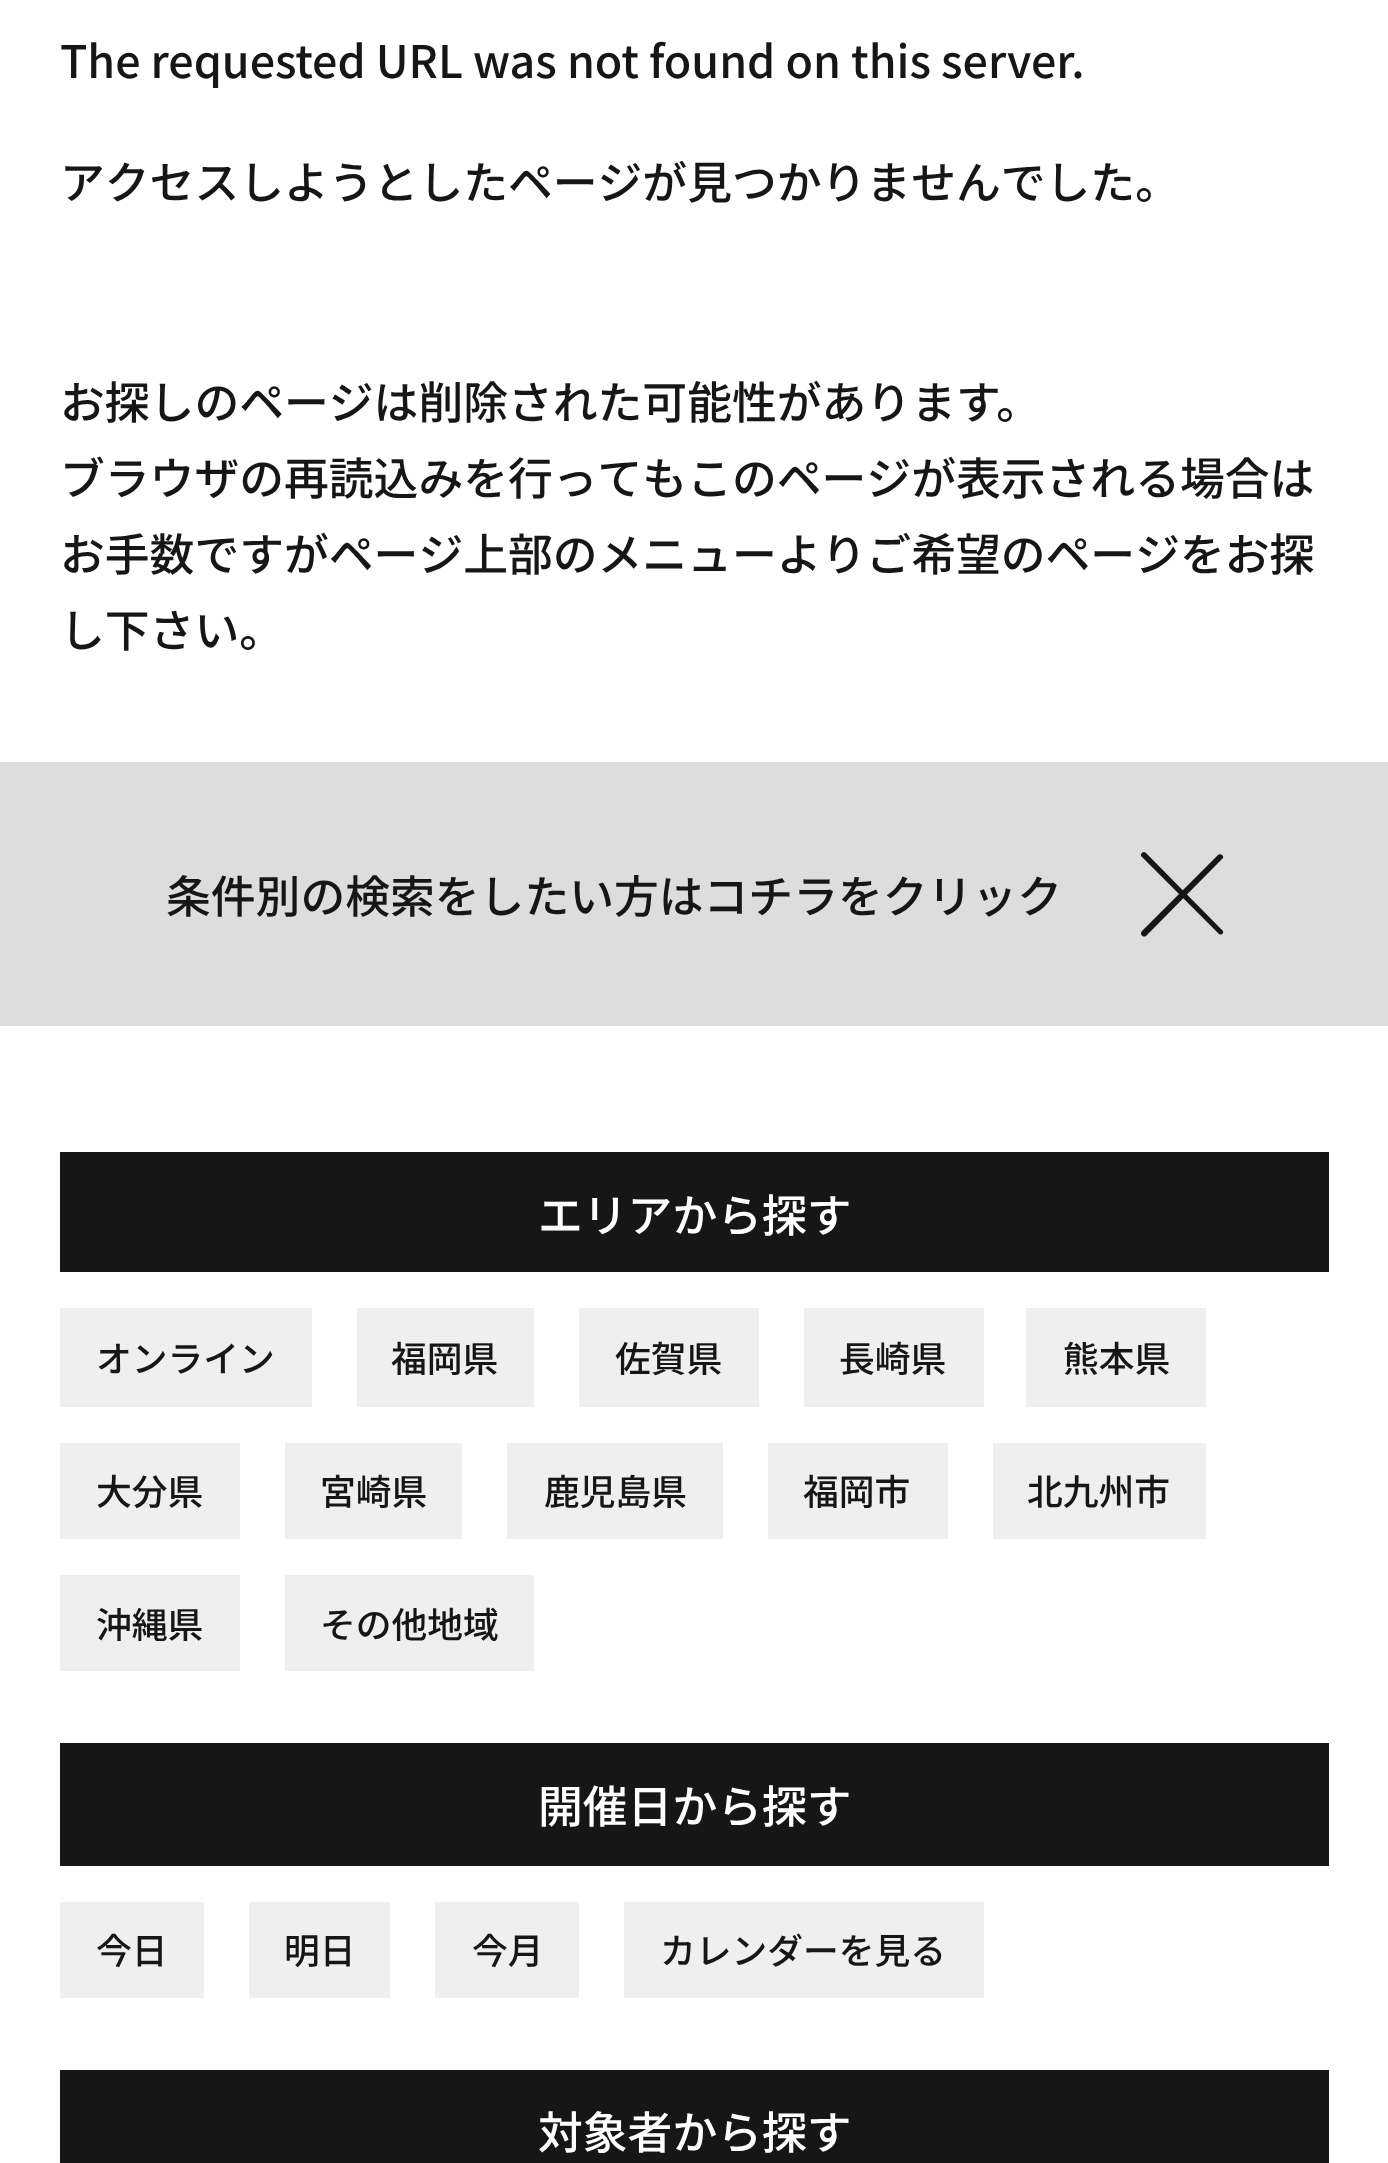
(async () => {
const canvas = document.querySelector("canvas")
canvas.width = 1388
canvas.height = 2163
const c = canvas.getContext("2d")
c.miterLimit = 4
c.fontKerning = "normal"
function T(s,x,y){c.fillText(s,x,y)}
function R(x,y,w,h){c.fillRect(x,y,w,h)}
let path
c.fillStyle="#fff"
R(0,0,1388,2163)
c.font="500 44.8px Noto Sans JP"
c.fillStyle="#161616"
T("The requested URL was not found on this server.",60,78)
T("アクセスしようとしたページが見つかりませんでした。",60,199)
T("お探しのページは削除された可能性があります。",60,419)
T("ブラウザの再読込みを行ってもこのページが表示される場合は",60,495)
T("お手数ですがページ上部のメニューよりご希望のページをお探",60,571)
T("し下さい。",60,647)
c.fillStyle="#ddd"
R(0,762,1388,264)
c.fillStyle="#161616"
T("条件別の検索をしたい方はコチラをクリック",166,913)
path = new Path2D("M1146 853l76 77c3 2 0 6-3 4l-77-77c-3-2 1-7 4-4z")
c.fill(path)
path = new Path2D("M1142 931l76-76c2-2 6 0 5 3l-77 78c-3 2-7-2-4-5z")
c.fill(path)
R(60,1152,1269,120)
c.fillStyle="#fff"
T("エリアから探す",538,1232)
c.fillStyle="#efefef"
R(60,1308,252,99)
c.font="500 35.75px Noto Sans JP"
c.fillStyle="#161616"
T("オンライン",96,1372)
c.fillStyle="#efefef"
R(357,1308,177,99)
c.fillStyle="#161616"
T("福岡県",391,1372)
c.fillStyle="#efefef"
R(579,1308,180,99)
c.fillStyle="#161616"
T("佐賀県",615,1372)
c.fillStyle="#efefef"
R(804,1308,180,99)
c.fillStyle="#161616"
T("長崎県",839,1372)
c.fillStyle="#efefef"
R(1026,1308,180,99)
c.fillStyle="#161616"
T("熊本県",1063,1372)
c.fillStyle="#efefef"
R(60,1443,180,96)
c.fillStyle="#161616"
T("大分県",96,1505)
c.fillStyle="#efefef"
R(285,1443,177,96)
c.fillStyle="#161616"
T("宮崎県",320,1505)
c.fillStyle="#efefef"
R(507,1443,216,96)
c.fillStyle="#161616"
T("鹿児島県",544,1505)
c.fillStyle="#efefef"
R(768,1443,180,96)
c.fillStyle="#161616"
T("福岡市",803,1505)
c.fillStyle="#efefef"
R(993,1443,213,96)
c.fillStyle="#161616"
T("北九州市",1027,1505)
c.fillStyle="#efefef"
R(60,1575,180,96)
c.fillStyle="#161616"
T("沖縄県",96,1638)
c.fillStyle="#efefef"
R(285,1575,249,96)
c.fillStyle="#161616"
T("その他地域",320,1638)
R(60,1743,1269,123)
c.font="500 44.8px Noto Sans JP"
c.fillStyle="#fff"
T("開催日から探す",538,1823)
c.fillStyle="#efefef"
R(60,1902,144,96)
c.font="500 35.75px Noto Sans JP"
c.fillStyle="#161616"
T("今日",96,1964)
c.fillStyle="#efefef"
R(249,1902,141,96)
c.fillStyle="#161616"
T("明日",284,1964)
c.fillStyle="#efefef"
R(435,1902,144,96)
c.fillStyle="#161616"
T("今月",472,1964)
c.fillStyle="#efefef"
R(624,1902,360,96)
c.fillStyle="#161616"
T("カレンダーを見る",660,1964)
R(60,2070,1269,93)
c.font="500 44.8px Noto Sans JP"
c.fillStyle="#fff"
T("対象者から探す",538,2149)
})()
